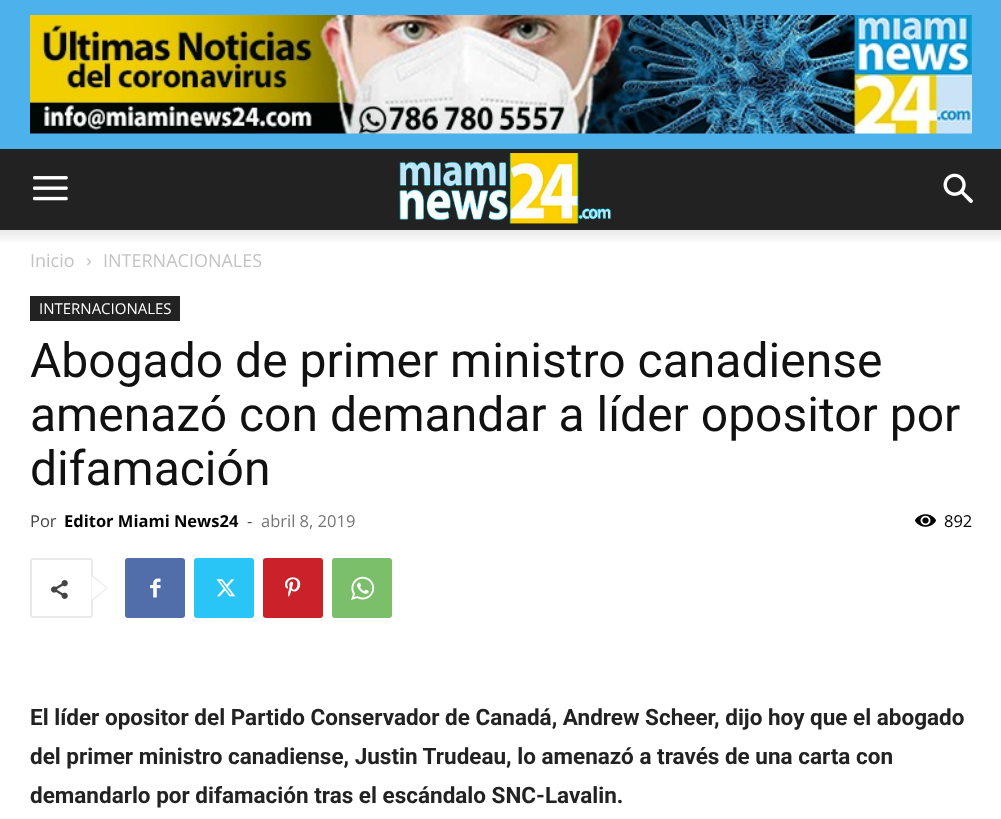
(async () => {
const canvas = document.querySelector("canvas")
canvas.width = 1001
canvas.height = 819
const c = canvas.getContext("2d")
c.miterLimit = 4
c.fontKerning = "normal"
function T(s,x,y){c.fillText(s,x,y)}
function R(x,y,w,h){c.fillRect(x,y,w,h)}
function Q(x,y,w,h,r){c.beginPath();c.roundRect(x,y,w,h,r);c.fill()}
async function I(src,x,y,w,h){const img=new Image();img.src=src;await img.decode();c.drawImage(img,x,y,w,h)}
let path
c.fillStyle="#fff"
R(0,0,1001,819)
c.fillStyle="#4db2ec"
R(0,0,1001,149)
await I("1.png",30,15,942,119)
c.fillStyle="#222"
R(0,149,1001,81)
await I("2.png",33,176,35,25)
await I("3.png",399,153,212,71)
await I("4.png",943,173,30,30)
await I("5.png",0,230,1001,12)
c.font="18px Open Sans"
c.fillStyle="#c3c3c3"
T("Inicio",30,267)
await I("6.png",87,258,4,8)
T("INTERNACIONALES",103,267)
c.fillStyle="#222"
R(30,296,150,25)
c.font="15px Open Sans"
c.fillStyle="#fff"
T("INTERNACIONALES",39,314)
c.font="48px Roboto"
c.fillStyle="#111"
T("Abogado de primer ministro canadiense",30,377)
T("amenazó con demandar a líder opositor por",30,431)
T("difamación",30,485)
c.font="16.5px Open Sans"
c.fillStyle="#444"
T("Por",30,527)
c.font="bold 16.5px Open Sans"
c.fillStyle="#000"
T("Editor Miami News24",64,527)
c.font="16.5px Open Sans"
c.fillStyle="#444"
T("-",247,527)
c.fillStyle="#767676"
T("abril 8, 2019",261,527)
await I("7.png",915,514,21,13)
c.fillStyle="#000"
T("892",944,527)
c.beginPath()
c.roundRect(31,559,61,58,2)
c.strokeStyle="#e9e9e9"
c.lineWidth=2
c.stroke()
c.fillStyle="#e9e9e9"
path = new Path2D("M91.5 601.5v-27l16.5 13.5z")
c.fill(path)
await I("8.png",51,580,17,19)
c.fillStyle="#fff"
path = new Path2D("M91.5 600v-24l15 12z")
c.fill(path)
c.fillStyle="#516eab"
Q(125,558,60,60,3)
await I("9.png",150,578,11,20)
c.fillStyle="#29c5f6"
Q(194,558,60,60,3)
await I("10.png",216,579,20,18)
c.fillStyle="#ca212a"
Q(263,558,60,60,3)
await I("11.png",285,577,16,20)
c.fillStyle="#7bbf6a"
Q(332,558,60,60,3)
await I("12.png",351,576,24,24)
c.font="bold 22.5px Roboto"
c.fillStyle="#222"
T("El líder opositor del Partido Conservador de Canadá, Andrew Scheer, dijo hoy que el abogado",30,725)
T("del primer ministro canadiense, Justin Trudeau, lo amenazó a través de una carta con",30,764)
T("demandarlo por difamación tras el escándalo SNC-Lavalin.",30,803)
})()
